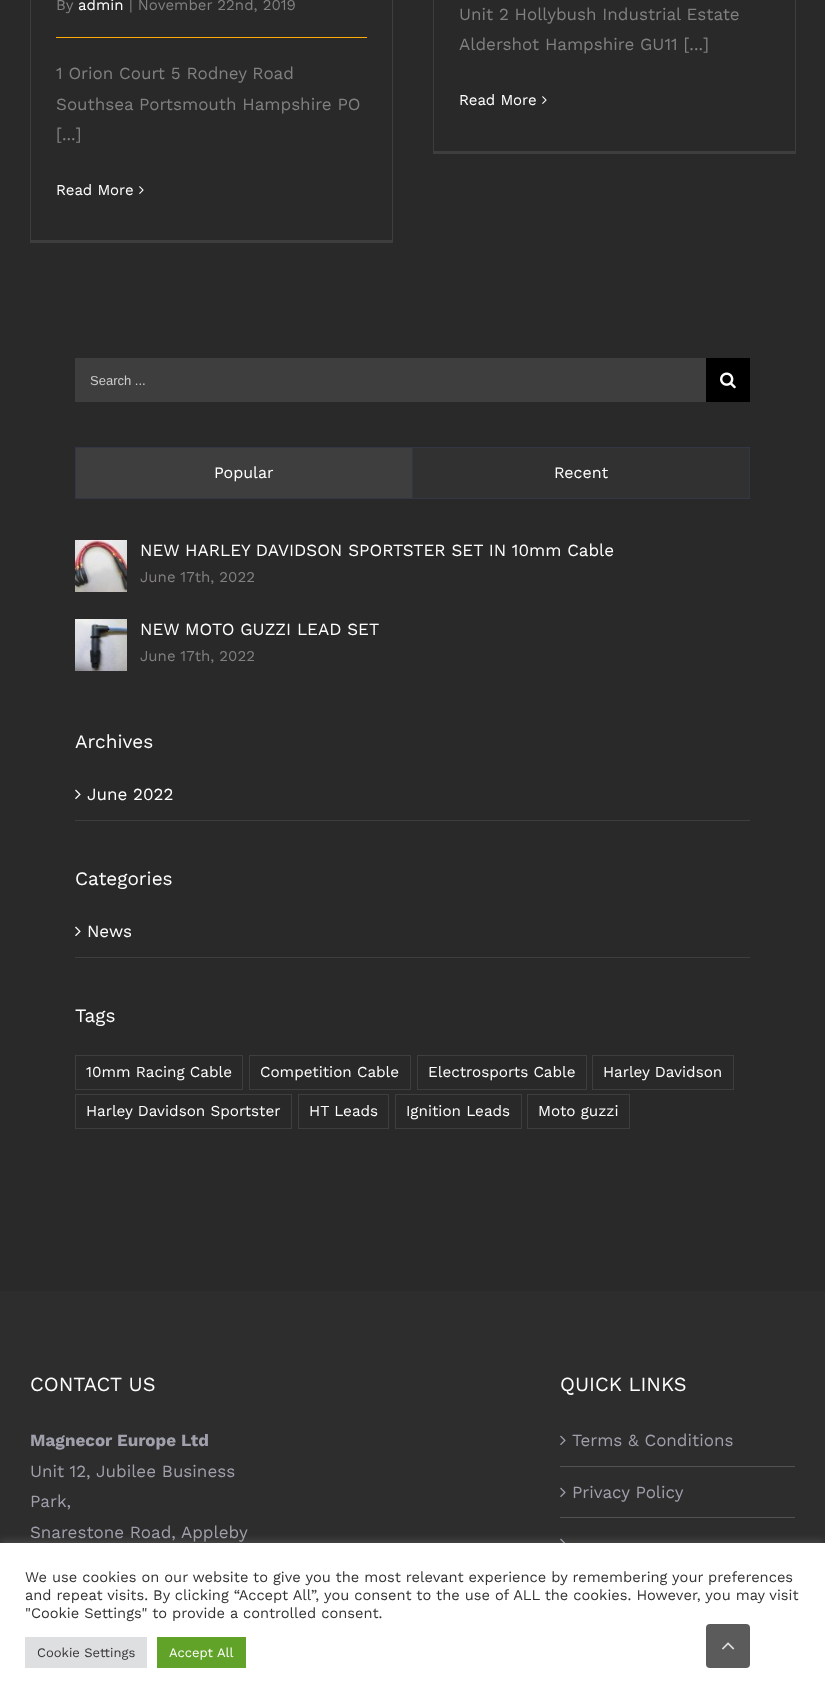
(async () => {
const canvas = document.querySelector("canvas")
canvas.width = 825
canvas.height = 1698
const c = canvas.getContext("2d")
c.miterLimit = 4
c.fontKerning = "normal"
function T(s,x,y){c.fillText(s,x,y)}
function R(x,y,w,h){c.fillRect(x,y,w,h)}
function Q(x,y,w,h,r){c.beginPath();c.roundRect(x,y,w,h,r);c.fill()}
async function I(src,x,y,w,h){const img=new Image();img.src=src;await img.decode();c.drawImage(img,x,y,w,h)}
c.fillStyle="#29292a"
R(0,0,825,1698)
c.fillStyle="#3e3e3e"
R(392,0,1,243)
R(30,240,363,3)
R(30,0,1,243)
c.font="15px Work Sans"
c.fillStyle="#828080"
T("By",56,10)
c.fillStyle="#fff"
T("admin",78,10)
c.fillStyle="#828080"
T("| November 22nd, 2019",129,10)
c.fillStyle="#ffaa06"
R(56,37,311,1)
c.font="17px Work Sans"
c.fillStyle="#828080"
T("1 Orion Court 5 Rodney Road",56,79)
T("Southsea Portsmouth Hampshire PO",56,110)
T("[...]",56,140)
c.font="15px Work Sans"
c.fillStyle="#fff"
T("Read More",56,195)
await I("1.png",139,186,5,8)
c.fillStyle="#3e3e3e"
R(795,0,1,154)
R(433,151,363,3)
R(433,0,1,154)
c.font="17px Work Sans"
c.fillStyle="#828080"
T("Unit 2 Hollybush Industrial Estate",459,20)
T("Aldershot Hampshire GU11 [...]",459,50)
c.font="15px Work Sans"
c.fillStyle="#fff"
T("Read More",459,105)
await I("1.png",542,96,5,8)
c.fillStyle="#3e3e3e"
R(75,358,631,44)
c.font="13px Liberation Sans"
c.fillStyle="#ccc"
T("Search ...",90,385)
c.fillStyle="#000"
R(706,358,44,44)
await I("2.png",720,372,16,17)
c.strokeStyle="#333645"
c.strokeRect(75.5,447.5,674,51)
c.fillStyle="#333645"
R(412,448,1,50)
c.fillStyle="#3e3e3e"
R(76,448,336,50)
c.font="16px Work Sans"
c.fillStyle="#fff"
T("Popular",214,478)
c.fillStyle="#313132"
R(413,448,336,50)
c.fillStyle="#fff"
T("Recent",554,478)
await I("3.png",75,540,52,52)
c.font="17px Work Sans"
T("NEW HARLEY DAVIDSON SPORTSTER SET IN 10mm Cable",140,556)
c.font="15px Work Sans"
c.fillStyle="#828080"
T("June 17th, 2022",140,582)
await I("4.png",75,619,52,52)
c.font="17px Work Sans"
c.fillStyle="#fff"
T("NEW MOTO GUZZI LEAD SET",140,635)
c.font="15px Work Sans"
c.fillStyle="#828080"
T("June 17th, 2022",140,661)
c.font="19px Work Sans"
c.fillStyle="#fff"
T("Archives",75,748)
c.fillStyle="#3e3e3e"
R(75,820,675,1)
await I("5.png",75,789,6,11)
c.font="17px Work Sans"
c.fillStyle="#fff"
T("June 2022",87,800)
c.font="19px Work Sans"
T("Categories",75,885)
c.fillStyle="#3e3e3e"
R(75,957,675,1)
await I("5.png",75,926,6,11)
c.font="17px Work Sans"
c.fillStyle="#fff"
T("News",87,937)
c.font="19px Work Sans"
T("Tags",75,1022)
c.strokeStyle="#3e3e3e"
c.strokeRect(75.5,1055.5,167,34)
c.font="15.25px Work Sans"
T("10mm Racing Cable",86,1077)
c.strokeRect(249.5,1055.5,161,34)
T("Competition Cable",260,1077)
c.strokeRect(417.5,1055.5,169,34)
T("Electrosports Cable",428,1077)
c.strokeRect(592.5,1055.5,141,34)
T("Harley Davidson",603,1077)
c.strokeRect(75.5,1094.5,216,34)
T("Harley Davidson Sportster",86,1116)
c.strokeRect(298.5,1094.5,90,34)
T("HT Leads",309,1116)
c.strokeRect(395.5,1094.5,126,34)
T("Ignition Leads",406,1116)
c.strokeRect(527.5,1094.5,102,34)
T("Moto guzzi",538,1116)
c.fillStyle="#2d2d2d"
R(0,1291,825,252)
c.font="20px Work Sans"
c.fillStyle="#fff"
T("CONTACT US",30,1391)
c.font="bold 17px Work Sans"
c.fillStyle="#9fa0ab"
T("Magnecor Europe Ltd",30,1446)
c.font="17px Work Sans"
T("Unit 12, Jubilee Business",30,1477)
T("Park,",30,1507)
T("Snarestone Road, Appleby",30,1538)
c.font="20px Work Sans"
c.fillStyle="#fff"
T("QUICK LINKS",560,1391)
c.fillStyle="#505152"
R(560,1466,235,1)
await I("6.png",560,1435,6,10)
c.font="17px Work Sans"
c.fillStyle="#9fa0ab"
T("Terms & Conditions",572,1446)
c.fillStyle="#505152"
R(560,1517,235,1)
await I("6.png",560,1487,6,10)
c.fillStyle="#9fa0ab"
T("Privacy Policy",572,1498)
await I("7.png",560,1538,6,5)
c.fillStyle="#acabab4d"
c.filter="blur(5px)"
c.beginPath()
c.rect(0,1542,825,155)
c.fill()
c.filter="none"
c.fillStyle="#fff"
R(0,1543,825,155)
c.font="14.67px Work Sans"
c.fillStyle="#333"
T("We use cookies on our website to give you the most relevant experience by remembering your preferences",25,1582)
T("and repeat visits. By clicking “Accept All”, you consent to the use of ALL the cookies. However, you may visit",25,1600)
T("\"Cookie Settings\" to provide a controlled consent.",25,1618)
c.fillStyle="#dedfe0"
R(25,1637,122,31)
c.font="13px Work Sans"
c.fillStyle="#333"
T("Cookie Settings",37,1657)
c.fillStyle="#61a229"
R(157,1637,89,31)
c.fillStyle="#fff"
T("Accept All",169,1657)
c.fillStyle="#5b5b5b"
Q(706,1624,44,44,4)
await I("8.png",722,1642,13,8)
})()
